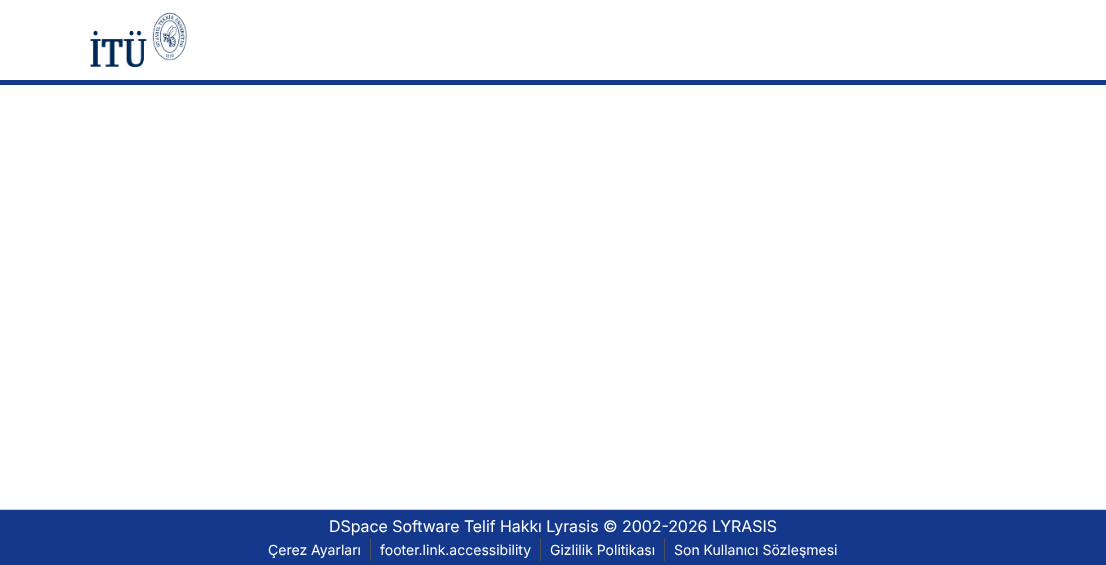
(async () => {
const canvas = document.querySelector("canvas")
canvas.width = 1106
canvas.height = 565
const c = canvas.getContext("2d")
c.miterLimit = 4
c.fontKerning = "normal"
function T(s,x,y){c.fillText(s,x,y)}
function R(x,y,w,h){c.fillRect(x,y,w,h)}
async function I(src,x,y,w,h){const img=new Image();img.src=src;await img.decode();c.drawImage(img,x,y,w,h)}
c.fillStyle="#fff"
R(0,0,1106,565)
c.fillStyle="#13388c"
R(0,80,1106,5)
await I("1.png",90,12,97,56)
R(0,510,1106,55)
c.fillStyle="#ced4da"
R(0,509,1106,1)
c.font="16px Inter"
c.fillStyle="#fff"
T("DSpace Software Telif Hakkı Lyrasis © 2002-2026 LYRASIS",329,532)
c.font="14px 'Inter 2'"
T("Çerez Ayarları",268,555)
c.fillStyle="#495057"
R(370,538,1,23)
c.fillStyle="#fff"
T("footer.link.accessibility",380,555)
c.fillStyle="#495057"
R(540,538,1,23)
c.fillStyle="#fff"
T("Gizlilik Politikası",550,555)
c.fillStyle="#495057"
R(664,538,1,23)
c.fillStyle="#fff"
T("Son Kullanıcı Sözleşmesi",674,555)
})()
